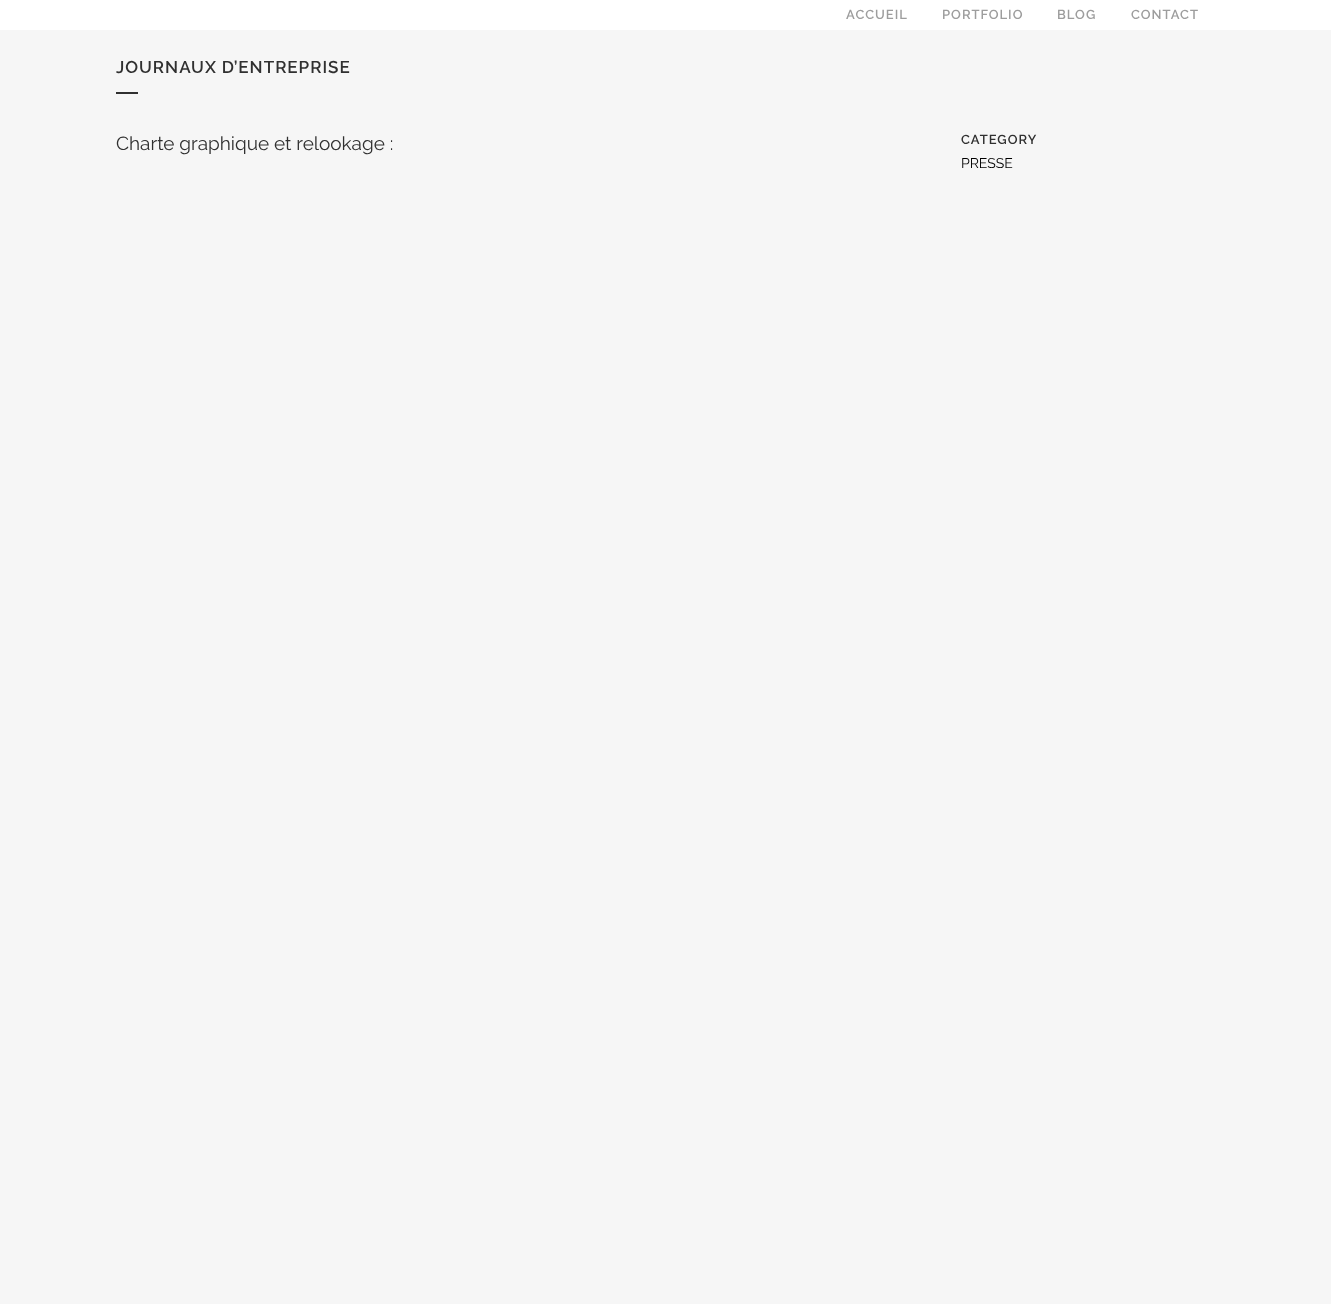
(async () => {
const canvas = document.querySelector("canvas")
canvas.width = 1331
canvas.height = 1304
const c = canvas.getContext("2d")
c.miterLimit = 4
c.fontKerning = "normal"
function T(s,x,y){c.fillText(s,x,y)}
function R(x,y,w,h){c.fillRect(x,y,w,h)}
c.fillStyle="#f6f6f6"
R(0,0,1331,1304)
c.fillStyle="#fff"
R(0,0,1331,30)
c.letterSpacing="1px"
c.font="600 13px Raleway"
c.fillStyle="#9d9d9d"
T("ACCUEIL",846,19)
T("PORTFOLIO",942,19)
T("BLOG",1057,19)
T("CONTACT",1131,19)
c.font="600 17px Raleway"
c.fillStyle="#303030"
T("JOURNAUX D’ENTREPRISE",116,73)
R(116,92,22,2)
c.letterSpacing="0px"
c.font="19px Raleway"
T("Charte graphique et relookage :",116,150)
c.letterSpacing="1px"
c.font="600 13px Raleway"
T("CATEGORY",961,144)
c.letterSpacing="0px"
c.font="14px Raleway"
c.fillStyle="#000"
T("PRESSE",961,168)
})()
